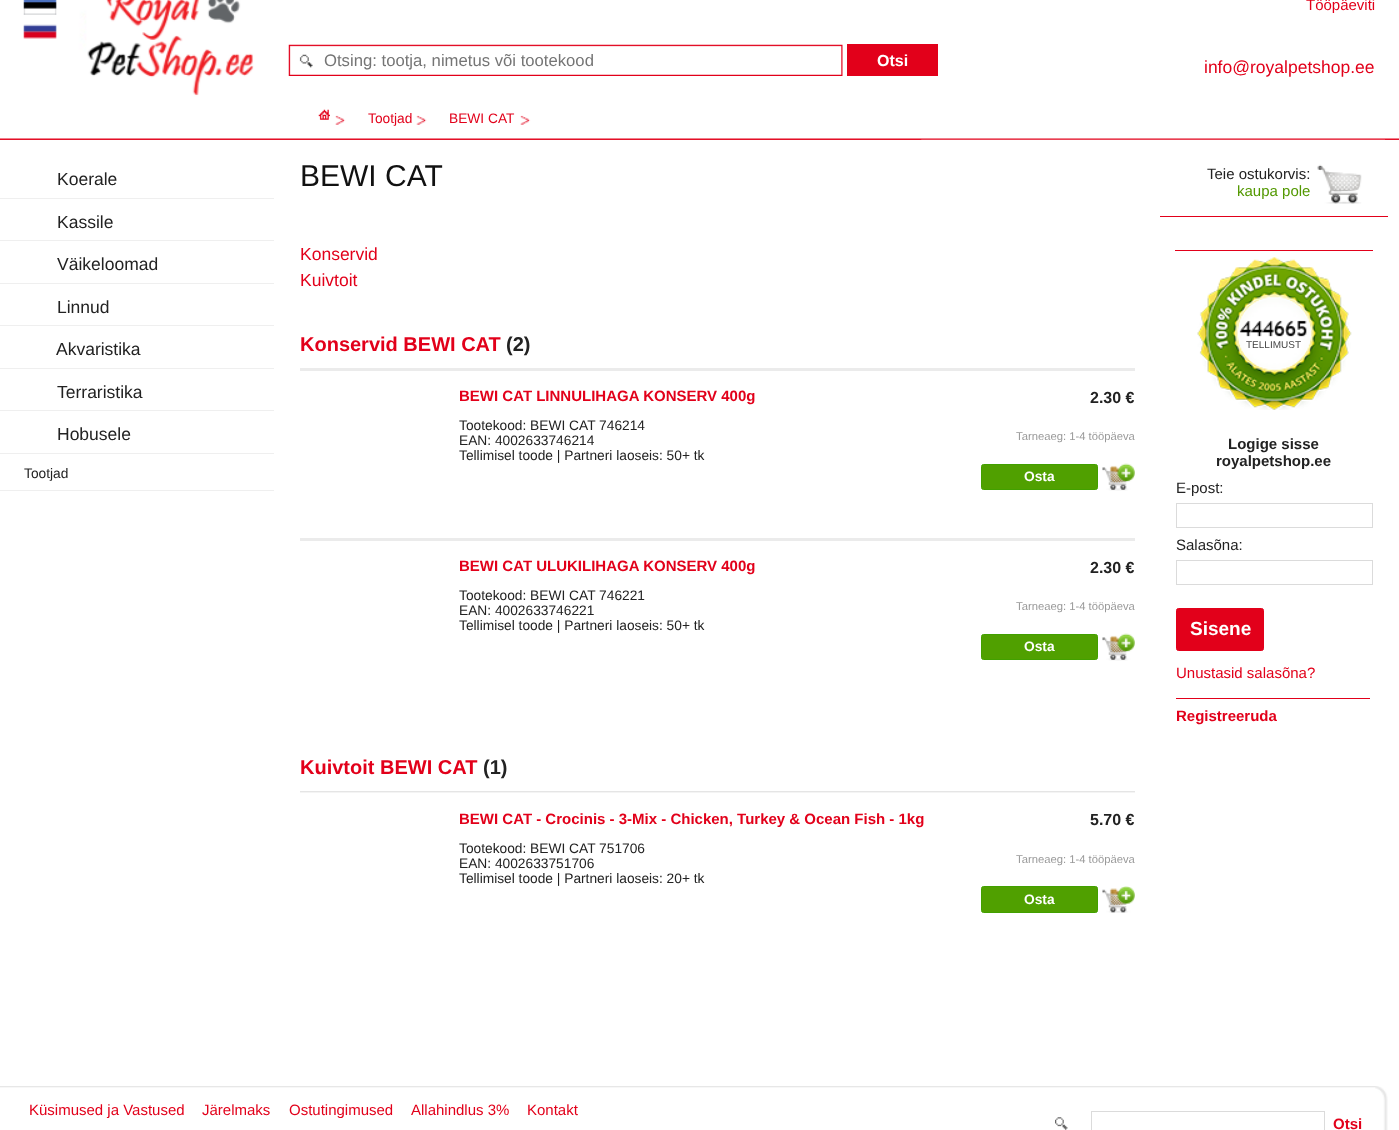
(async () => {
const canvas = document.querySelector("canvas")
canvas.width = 1399
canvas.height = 1130
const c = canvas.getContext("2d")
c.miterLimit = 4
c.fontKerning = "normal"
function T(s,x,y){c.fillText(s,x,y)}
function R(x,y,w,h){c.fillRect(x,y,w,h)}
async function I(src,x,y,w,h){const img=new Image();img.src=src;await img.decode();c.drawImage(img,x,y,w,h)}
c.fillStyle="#fff"
R(0,0,1399,1130)
await I("1.png",0,138,1399,2)
await I("2.png",0,0,922,140)
c.fillStyle="#e41027"
R(1385,139,14,1)
await I("3.png",23,0,34,15)
await I("4.png",23,24,34,15)
c.font="15px Liberation Sans"
c.fillStyle="#e2001a"
T("Tööpäeviti",1306,10)
await I("5.png",288,44,555,32)
c.font="16.7px Liberation Sans"
c.fillStyle="#757575"
T("Otsing: tootja, nimetus või tootekood",324,66)
c.fillStyle="#e2001a"
R(847,44,8,32)
R(855,44,83,32)
c.font="bold 16px Liberation Sans"
c.fillStyle="#fff"
T("Otsi",877,66)
c.font="17.5px Liberation Sans"
c.fillStyle="#e2001a"
T("info@royalpetshop.ee",1204,73)
await I("6.png",335,115,11,10)
await I("7.png",318,109,12,11)
await I("8.png",416,115,11,10)
c.font="13.75px Liberation Sans"
T("Tootjad",368,123)
await I("6.png",520,115,11,10)
T("BEWI CAT",449,123)
c.fillStyle="#efefef"
R(0,198,274,1)
c.font="17.5px Liberation Sans"
c.fillStyle="#222"
T("Koerale",57,185)
c.fillStyle="#efefef"
R(0,240,274,1)
c.fillStyle="#222"
T("Kassile",57,228)
c.fillStyle="#efefef"
R(0,283,274,1)
c.fillStyle="#222"
T("Väikeloomad",57,270)
c.fillStyle="#efefef"
R(0,325,274,1)
c.fillStyle="#222"
T("Linnud",57,313)
c.fillStyle="#efefef"
R(0,368,274,1)
c.fillStyle="#222"
T("Akvaristika",56,355)
c.fillStyle="#efefef"
R(0,410,274,1)
c.fillStyle="#222"
T("Terraristika",57,398)
c.fillStyle="#efefef"
R(0,453,274,1)
c.fillStyle="#222"
T("Hobusele",57,440)
c.fillStyle="#efefef"
R(0,490,274,1)
c.font="13.75px Liberation Sans"
c.fillStyle="#222"
T("Tootjad",24,478)
c.font="30px Liberation Sans"
c.fillStyle="#111"
T("BEWI CAT",300,186)
c.font="17.5px Liberation Sans"
c.fillStyle="#e2001a"
T("Konservid",300,260)
T("Kuivtoit",300,286)
c.font="bold 20px Liberation Sans"
T("Konservid BEWI CAT",300,351)
c.fillStyle="#222"
T("(2)",506,351)
c.fillStyle="#ebebeb"
R(300,368,835,3)
c.font="bold 15px Liberation Sans"
c.fillStyle="#e2001a"
T("BEWI CAT LINNULIHAGA KONSERV 400g",459,401)
c.font="bold 16px Liberation Sans"
c.fillStyle="#222"
T("2.30 €",1090,403)
c.font="13.75px Liberation Sans"
T("Tootekood: BEWI CAT 746214",459,430)
T("EAN: 4002633746214",459,445)
T("Tellimisel toode | Partneri laoseis: 50+ tk",459,460)
c.font="11.25px Liberation Sans"
c.fillStyle="#999"
T("Tarneaeg: 1-4 tööpäeva",1016,440)
c.fillStyle="#50a000"
c.beginPath()
c.roundRect(981.5,464.5,116,25,2)
c.fill()
c.strokeStyle="#42a000"
c.stroke()
c.font="bold 13.75px Liberation Sans"
c.fillStyle="#fff"
T("Osta",1024,481)
await I("9.png",1102,463,33,28)
c.fillStyle="#ebebeb"
R(300,538,835,3)
c.font="bold 15px Liberation Sans"
c.fillStyle="#e2001a"
T("BEWI CAT ULUKILIHAGA KONSERV 400g",459,571)
c.font="bold 16px Liberation Sans"
c.fillStyle="#222"
T("2.30 €",1090,573)
c.font="13.75px Liberation Sans"
T("Tootekood: BEWI CAT 746221",459,600)
T("EAN: 4002633746221",459,615)
T("Tellimisel toode | Partneri laoseis: 50+ tk",459,630)
c.font="11.25px Liberation Sans"
c.fillStyle="#999"
T("Tarneaeg: 1-4 tööpäeva",1016,610)
c.fillStyle="#50a000"
c.beginPath()
c.roundRect(981.5,634.5,116,25,2)
c.fill()
c.stroke()
c.font="bold 13.75px Liberation Sans"
c.fillStyle="#fff"
T("Osta",1024,651)
await I("9.png",1102,633,33,28)
c.font="bold 20px Liberation Sans"
c.fillStyle="#e2001a"
T("Kuivtoit BEWI CAT",300,774)
c.fillStyle="#222"
T("(1)",483,774)
await I("10.png",300,791,835,2)
c.font="bold 15px Liberation Sans"
c.fillStyle="#e2001a"
T("BEWI CAT - Crocinis - 3-Mix - Chicken, Turkey & Ocean Fish - 1kg",459,824)
c.font="bold 16px Liberation Sans"
c.fillStyle="#222"
T("5.70 €",1090,825)
c.font="13.75px Liberation Sans"
T("Tootekood: BEWI CAT 751706",459,853)
T("EAN: 4002633751706",459,868)
T("Tellimisel toode | Partneri laoseis: 20+ tk",459,883)
c.font="11.25px Liberation Sans"
c.fillStyle="#999"
T("Tarneaeg: 1-4 tööpäeva",1016,863)
c.fillStyle="#50a000"
c.beginPath()
c.roundRect(981.5,886.5,116,26,2)
c.fill()
c.stroke()
c.font="bold 13.75px Liberation Sans"
c.fillStyle="#fff"
T("Osta",1024,904)
await I("11.png",1102,886,33,27)
c.fillStyle="#e2001a"
R(1160,216,228,1)
await I("12.png",1317,164,45,40)
c.font="15px Liberation Sans"
c.fillStyle="#222"
T("Teie ostukorvis:",1207,179)
c.fillStyle="#529800"
T("kaupa pole",1237,196)
c.fillStyle="#e2001a"
R(1175,250,198,1)
await I("13.png",1197,257,155,153)
c.font="10px Liberation Sans"
c.fillStyle="#444"
T("TELLIMUST",1246,348)
c.font="bold 15px Liberation Sans"
c.fillStyle="#222"
T("Logige sisse",1228,449)
T("royalpetshop.ee",1216,466)
c.font="15px Liberation Sans"
T("E-post:",1176,493)
c.strokeStyle="#dbdbdb"
c.strokeRect(1176.5,503.5,196,24)
T("Salasõna:",1176,550)
c.strokeRect(1176.5,560.5,196,24)
c.fillStyle="#e2001a"
c.beginPath()
c.roundRect(1176.5,608.5,87,42,2)
c.fill()
c.strokeStyle="#e2001a"
c.stroke()
c.font="bold 19px Liberation Sans"
c.fillStyle="#fff"
T("Sisene",1190,635)
c.font="15px Liberation Sans"
c.fillStyle="#e2001a"
T("Unustasid salasõna?",1176,678)
R(1176,698,194,1)
c.font="bold 15px Liberation Sans"
T("Registreeruda",1176,721)
await I("14.png",0,1086,1375,2)
await I("15.png",1375,1086,24,44)
c.font="15px Liberation Sans"
T("Küsimused ja Vastused",29,1115)
T("Järelmaks",202,1115)
T("Ostutingimused",289,1115)
T("Allahindlus 3%",411,1115)
T("Kontakt",527,1115)
await I("16.png",1055,1117,13,13)
c.strokeStyle="#dbdbdb"
c.strokeRect(1091.5,1111.5,233,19)
c.font="bold 15px Liberation Sans"
T("Otsi",1333,1129)
})()
